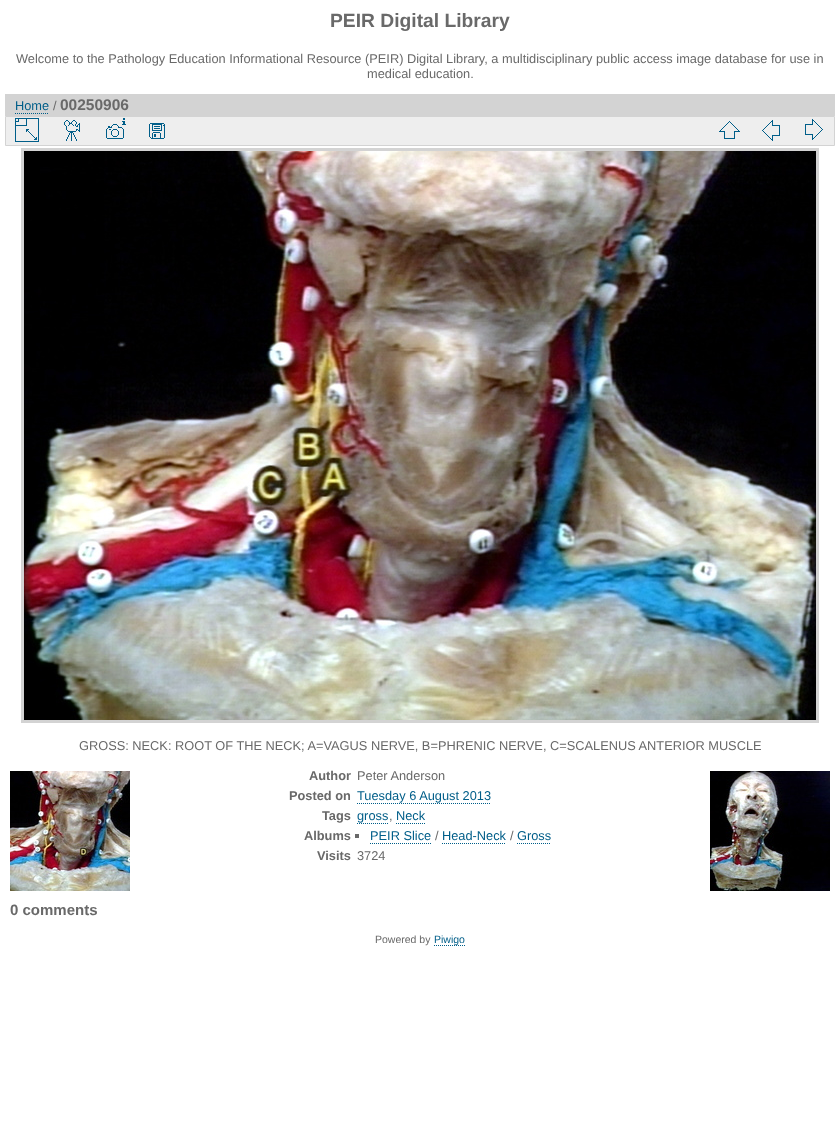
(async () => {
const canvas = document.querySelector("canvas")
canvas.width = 840
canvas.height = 1139
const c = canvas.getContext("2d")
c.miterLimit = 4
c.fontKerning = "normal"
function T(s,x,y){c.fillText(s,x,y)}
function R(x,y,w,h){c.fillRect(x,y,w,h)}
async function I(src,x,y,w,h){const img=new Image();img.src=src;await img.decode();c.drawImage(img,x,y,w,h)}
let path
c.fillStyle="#fff"
R(0,0,840,1139)
c.font="bold 19.25px Liberation Sans"
c.fillStyle="#696969"
T("PEIR Digital Library",330,27)
c.font="12.8px Liberation Sans"
T("Welcome to the Pathology Education Informational Resource (PEIR) Digital Library, a multidisciplinary public access image database for use in",16,63)
T("medical education.",367,78)
c.fillStyle="#d3d3d3"
R(5,94,830,22)
c.fillStyle="#005e89"
T("Home",15,110)
path = new Path2D("M15 113.5h34")
c.strokeStyle="#005e89"
c.setLineDash([1,1])
c.stroke(path)
c.fillStyle="#696969"
T("/",53,110)
c.font="bold 15.5px Liberation Sans"
T("00250906",60,110)
c.fillStyle="#eee"
c.beginPath()
c.rect(5.5,116.5,829,29)
c.fill()
c.strokeStyle="#d3d3d3"
c.setLineDash([])
c.stroke()
await I("1.png",15,118,24,24)
await I("2.png",64,120,16,21)
await I("3.png",106,118,20,21)
await I("4.png",149,123,16,16)
await I("5.png",719,121,21,18)
await I("6.png",762,120,18,21)
await I("7.png",805,119,18,21)
c.lineWidth=3
c.strokeRect(22.5,149.5,795,572)
await I("8.png",24,151,792,569)
c.font="12.8px Liberation Sans"
c.fillStyle="#696969"
T("GROSS: NECK: ROOT OF THE NECK; A=VAGUS NERVE, B=PHRENIC NERVE, C=SCALENUS ANTERIOR MUSCLE",79,750)
c.font="bold 12.8px Liberation Sans"
T("Author",309,780)
c.font="12.8px Liberation Sans"
T("Peter Anderson",357,780)
c.font="bold 12.8px Liberation Sans"
T("Posted on",289,800)
c.font="12.8px Liberation Sans"
c.fillStyle="#005e89"
T("Tuesday 6 August 2013",357,800)
path = new Path2D("M357 803.5h134")
c.strokeStyle="#005e89"
c.lineWidth=1
c.setLineDash([1,1])
c.stroke(path)
c.font="bold 12.8px Liberation Sans"
c.fillStyle="#696969"
T("Tags",322,820)
c.font="12.8px Liberation Sans"
c.fillStyle="#005e89"
T("gross",357,820)
path = new Path2D("M357 823.5h32")
c.stroke(path)
c.fillStyle="#696969"
T(",",389,820)
c.fillStyle="#005e89"
T("Neck",396,820)
path = new Path2D("M396 823.5h29")
c.stroke(path)
c.font="bold 12.8px Liberation Sans"
c.fillStyle="#696969"
T("Albums",304,840)
R(355,834,4,4)
c.font="12.8px Liberation Sans"
c.fillStyle="#005e89"
T("PEIR Slice",370,840)
path = new Path2D("M370 843.5h61")
c.stroke(path)
c.fillStyle="#696969"
T("/",435,840)
c.fillStyle="#005e89"
T("Head-Neck",442,840)
path = new Path2D("M442 843.5h64")
c.stroke(path)
c.fillStyle="#696969"
T("/",510,840)
c.fillStyle="#005e89"
T("Gross",517,840)
path = new Path2D("M517 843.5h34")
c.stroke(path)
c.font="bold 12.8px Liberation Sans"
c.fillStyle="#696969"
T("Visits",317,860)
c.font="12.8px Liberation Sans"
T("3724",357,860)
await I("9.png",10,771,120,120)
await I("10.png",710,771,120,120)
c.font="bold 15px Liberation Sans"
T("0 comments",10,915)
c.font="10.5px Liberation Sans"
T("Powered by",375,943)
path = new Path2D("M434 945.5h31")
c.stroke(path)
c.fillStyle="#005e89"
T("Piwigo",434,943)
})()
